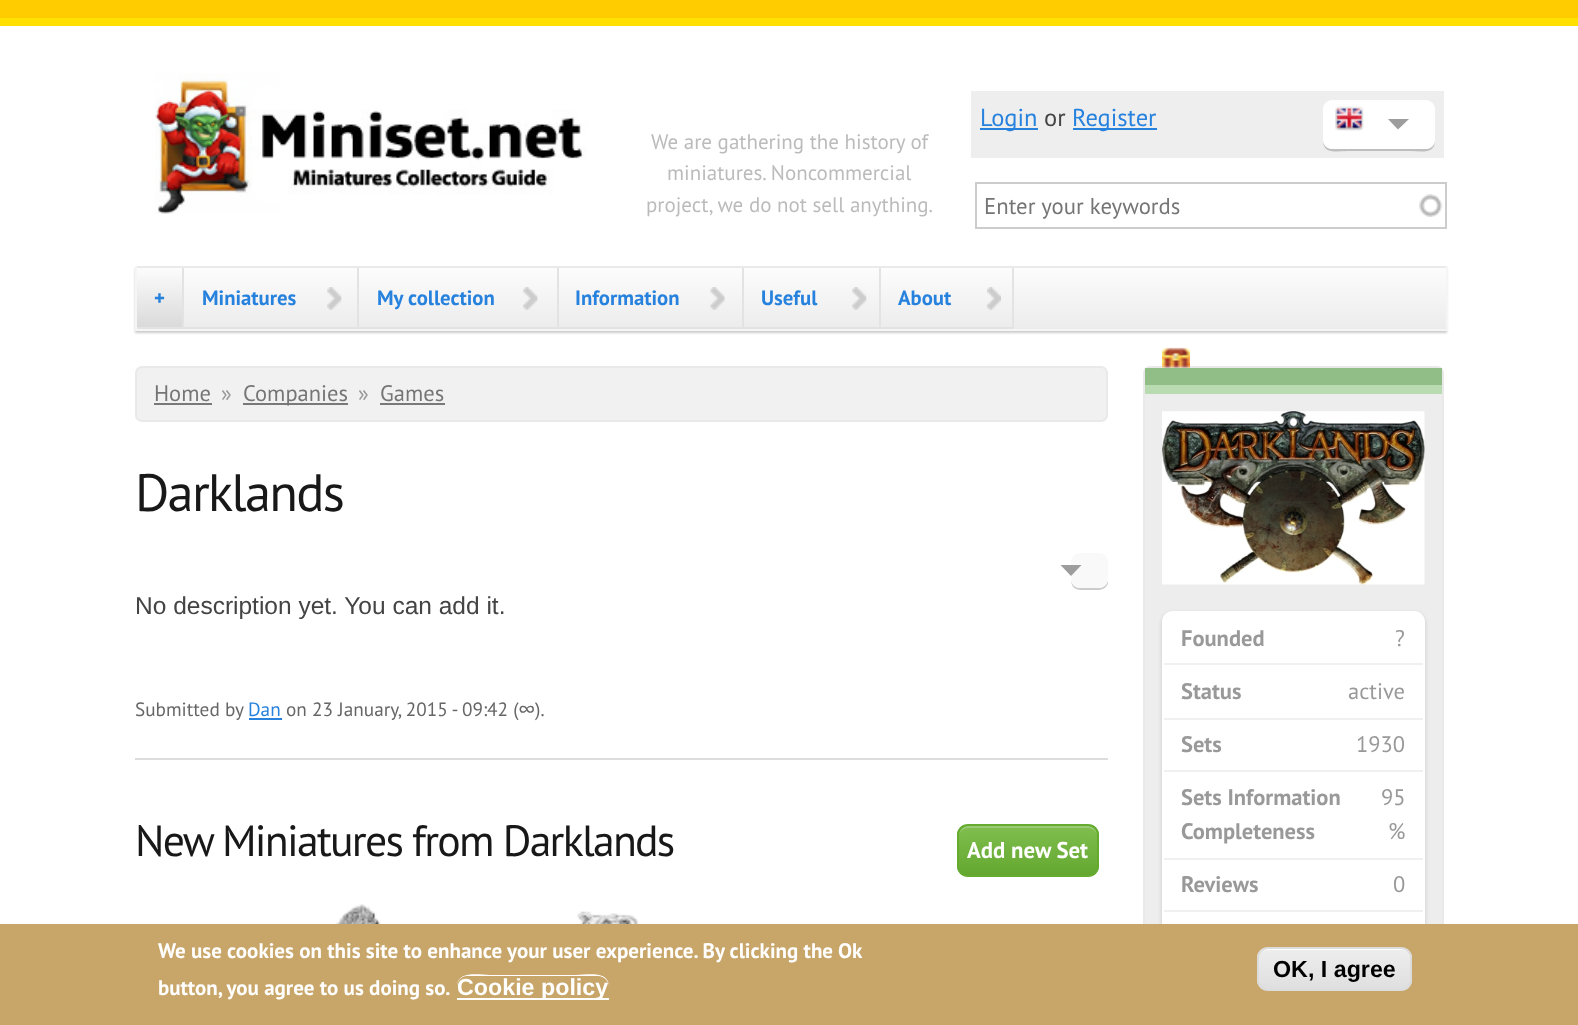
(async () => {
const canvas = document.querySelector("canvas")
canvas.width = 1578
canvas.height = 1025
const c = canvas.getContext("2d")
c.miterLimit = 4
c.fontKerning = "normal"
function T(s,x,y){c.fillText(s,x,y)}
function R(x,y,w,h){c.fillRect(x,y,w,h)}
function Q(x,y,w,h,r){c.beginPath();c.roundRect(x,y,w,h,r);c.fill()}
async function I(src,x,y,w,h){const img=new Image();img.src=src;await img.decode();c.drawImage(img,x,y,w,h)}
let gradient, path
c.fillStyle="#fff"
R(0,0,1578,1025)
c.fillStyle="#fc0"
R(0,0,1578,18)
c.fillStyle="#ffe000"
R(0,18,1578,8)
await I("1.png",155,73,432,141)
c.font="21px PT Sans"
c.fillStyle="#bbb"
T("We are gathering the history of",651,149)
T("miniatures. Noncommercial",667,180)
T("project, we do not sell anything.",646,212)
c.fillStyle="#eee"
R(971,91,473,67)
c.fillStyle="#2782de"
R(980,128,58,2)
c.font="24.5px PT Sans"
T("Login",980,126)
c.fillStyle="#444"
T("or",1044,126)
c.fillStyle="#2782de"
R(1073,128,84,2)
T("Register",1072,126)
c.fillStyle="#bebebe"
path = new Path2D("M1323 140c0 15 14 11 25 11h62c11 0 25 4 25-11c0 5-4 9-9 9h-94c-5 0-9-4-9-9z")
c.fill(path)
c.fillStyle="#fff"
Q(1323,100,112,49,9)
await I("2.png",1335,106,29,25)
c.fillStyle="#9d9d9d"
path = new Path2D("M1388 119h21l-11 10.5z")
c.fill(path)
await I("3.png",1419,194,24,23)
c.strokeStyle="#ccc"
c.lineWidth=2
c.strokeRect(976,183,470,45)
c.font="22.75px PT Sans"
c.fillStyle="#757575"
T("Enter your keywords",984,214)
c.fillStyle="#00000033"
c.filter="blur(1px)"
c.beginPath()
c.rect(135,268,1312,65)
c.fill()
c.filter="none"
gradient = c.createLinearGradient(791,268,791,329)
gradient.addColorStop(0,"#fcfcfc")
gradient.addColorStop(1,"#ececec")
c.fillStyle = gradient
R(184,268,1262,61)
c.fillStyle="#eaeaea"
R(135,266,1312,2)
c.fillStyle="#f5f5f5"
R(1446,266,2,65)
R(135,329,1312,2)
R(135,266,2,65)
gradient = c.createLinearGradient(159,268,159,327)
gradient.addColorStop(0,"#fcfcfc")
gradient.addColorStop(1,"#dadada")
c.fillStyle = gradient
R(137,268,45,59)
c.fillStyle="#e3e3e3"
R(182,268,2,61)
R(137,327,47,2)
c.font="bold 20.75px PT Sans"
c.fillStyle="#2782de"
T("+",154,305)
c.fillStyle="#e3e3e3"
R(357,268,2,61)
R(184,327,175,2)
await I("4.png",327,287,15,23)
c.fillStyle="#2782de"
T("Miniatures",202,305)
c.fillStyle="#e3e3e3"
R(557,268,2,61)
R(359,327,199,2)
await I("4.png",523,287,15,23)
c.fillStyle="#2782de"
T("My collection",377,305)
c.fillStyle="#e3e3e3"
R(742,268,2,61)
R(558,327,186,2)
await I("5.png",710,287,15,23)
c.fillStyle="#2782de"
T("Information",575,305)
c.fillStyle="#e3e3e3"
R(879,268,2,61)
R(744,327,136,2)
await I("4.png",852,287,15,23)
c.fillStyle="#2782de"
T("Useful",761,305)
c.fillStyle="#e3e3e3"
R(1012,268,2,61)
R(880,327,133,2)
await I("6.png",987,287,14,23)
c.fillStyle="#2782de"
T("About",898,305)
c.fillStyle="#f1f1f1"
c.beginPath()
c.roundRect(136,367,971,54,6)
c.fill()
c.strokeStyle="#e9e9e9"
c.stroke()
c.font="22.5px PT Sans"
c.fillStyle="#757575"
T("Home",154,401)
c.fillStyle="#797979"
R(154,403,58,2)
c.fillStyle="#999"
T("»",221,401)
c.fillStyle="#797979"
R(243,403,105,2)
c.fillStyle="#757575"
T("Companies",243,401)
c.fillStyle="#999"
T("»",358,401)
c.fillStyle="#757575"
T("Games",380,401)
c.fillStyle="#797979"
R(380,403,65,2)
c.letterSpacing="-1.75px"
c.font="52.5px PT Sans"
c.fillStyle="#181818"
T("Darklands",135,511)
c.fillStyle="#ccc"
path = new Path2D("M1071 579c0 12.5 9 11 18.5 11c6.5 0 16.5 1.5 18.5-7v-16v-5v17c0 5-4 9-9 9h-19c-5 0-9-4-9-9z")
c.fill(path)
c.fillStyle="#f9f9f9"
Q(1071,553,37,35,9)
c.fillStyle="#9d9d9d"
path = new Path2D("M1060.5 565h21l-10.5 11z")
c.fill(path)
c.letterSpacing="0px"
c.font="24.5px Liberation Sans"
c.fillStyle="#444"
T("No description yet. You can add it.",135,614)
c.font="19.25px PT Sans"
c.fillStyle="#666"
T("Submitted by",135,716)
c.fillStyle="#2782de"
T("Dan",248,716)
R(249,718,33,2)
c.fillStyle="#666"
T("on 23 January, 2015 - 09:42 (∞).",286,716)
c.fillStyle="#ddd"
R(135,758,973,2)
c.letterSpacing="-1.75px"
c.font="43.75px PT Sans"
c.fillStyle="#181818"
T("New Miniatures from Darklands",135,856)
c.save()
c.beginPath()
c.roundRect(957,824,142,53,11)
c.clip()
gradient = c.createLinearGradient(1028,826,1028,875)
gradient.addColorStop(0,"#80bf4f")
gradient.addColorStop(1,"#63a72f")
c.fillStyle = gradient
R(957,826,142,49)
c.restore()
c.fillStyle="#9bcb76"
path = new Path2D("M968 828h120c5 0 9 4 9 8c0-15-20-10-29-10h-80c-9 0-29-5-29 10c0-4 4-8 9-8z")
c.fill(path)
c.beginPath()
c.roundRect(958,825,140,51,10)
c.strokeStyle="#65ab30"
c.stroke()
c.letterSpacing="0px"
c.font="bold 22.75px PT Sans"
c.fillStyle="#fff"
T("Add new Set",967,858)
await I("7.png",304,904,169,20)
await I("8.png",535,911,172,13)
c.fillStyle="#ededed"
c.beginPath()
c.roundRect(1144,367,299,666,6)
c.fill()
c.strokeStyle="#e9e9e9"
c.stroke()
c.fillStyle="#91bd87"
R(1145,368,297,17)
await I("9.png",1162,347,28,21)
c.fillStyle="#b9dbb1"
R(1145,385,297,9)
await I("10.png",1162,411,263,174)
c.fillStyle="#00000026"
c.filter="blur(2px)"
c.beginPath()
c.roundRect(1162,613,263,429,11)
c.fill()
c.filter="none"
c.fillStyle="#fff"
c.beginPath()
c.roundRect(1163,612,261,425,10)
c.fill()
c.strokeStyle="#fff"
c.stroke()
c.fillStyle="#f0f0f0"
R(1164,663,259,2)
c.font="bold 22.5px PT Sans"
c.fillStyle="#999"
T("Founded",1181,646)
c.font="22.5px PT Sans"
T("?",1395,646)
c.fillStyle="#f0f0f0"
R(1164,718,259,2)
c.font="bold 22.5px PT Sans"
c.fillStyle="#999"
T("Status",1181,699)
c.font="22.5px PT Sans"
T("active",1348,699)
c.fillStyle="#f0f0f0"
R(1164,770,259,2)
c.font="bold 22.5px PT Sans"
c.fillStyle="#999"
T("Sets",1181,752)
c.font="22.5px PT Sans"
T("1930",1356,752)
c.fillStyle="#f0f0f0"
R(1164,858,259,2)
c.font="bold 22.5px PT Sans"
c.fillStyle="#999"
T("Sets Information",1181,805)
T("Completeness",1181,839)
c.font="22.5px PT Sans"
T("95",1381,805)
T("%",1388,839)
c.fillStyle="#f0f0f0"
R(1164,910,259,2)
c.font="bold 22.5px PT Sans"
c.fillStyle="#999"
T("Reviews",1181,892)
c.font="22.5px PT Sans"
T("0",1393,892)
c.fillStyle="#c8a568"
R(0,924,1578,101)
c.font="bold 21px PT Sans"
c.fillStyle="#fff"
T("We use cookies on this site to enhance your user experience. By clicking the Ok",158,958)
T("button, you agree to us doing so.",158,995)
path = new Path2D("M467 976h131c6 0 11 5 11 11c0-17-22-12-33-12h-86c-11 0-33-5-33 12c0-6 4-11 10-11z")
c.fill(path)
R(457,998,152,2)
c.font="bold 23.25px Liberation Sans"
T("Cookie policy",457,995)
c.save()
c.beginPath()
c.roundRect(1257,947,155,44,11)
c.clip()
gradient = c.createLinearGradient(1334,949,1334,989)
gradient.addColorStop(.05,"#ededed")
gradient.addColorStop(1,"#dfdfdf")
c.fillStyle = gradient
R(1257,949,155,40)
c.restore()
path = new Path2D("M1267 950h135c5 0 8 4 8 9v26c1-2 1-3 1-5v-22c0-5-4-9-9-9h-135c-5 0-9 4-9 9v1c0-5 4-9 9-9z")
c.fill(path)
c.beginPath()
c.roundRect(1258,948,153,42,10)
c.strokeStyle="#dcdcdc"
c.stroke()
c.fillStyle="#000"
T("OK, I agree",1273,977)
})()
